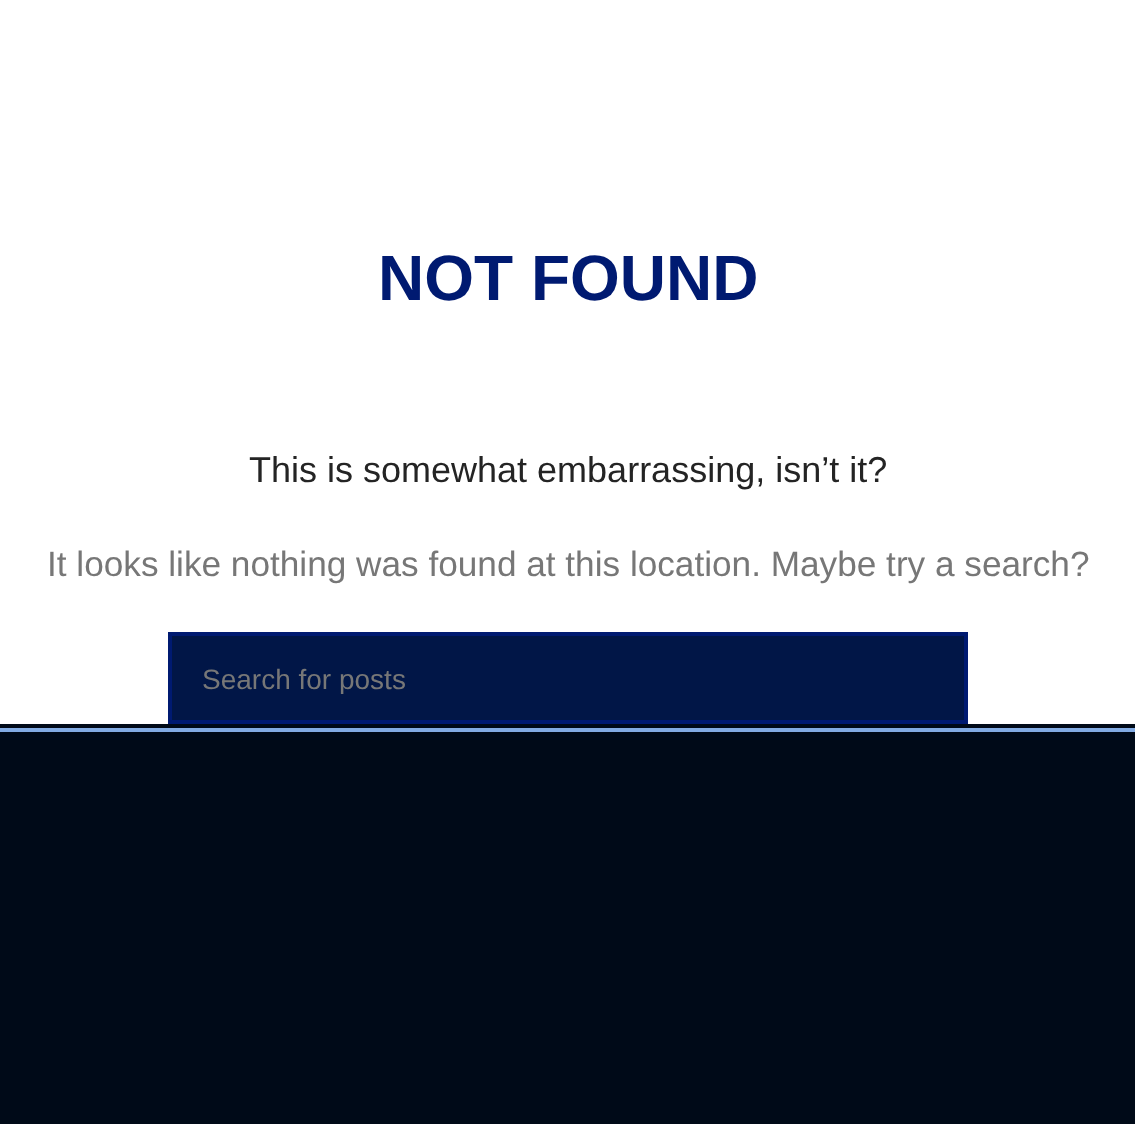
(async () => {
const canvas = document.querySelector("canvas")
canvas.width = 1135
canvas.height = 1124
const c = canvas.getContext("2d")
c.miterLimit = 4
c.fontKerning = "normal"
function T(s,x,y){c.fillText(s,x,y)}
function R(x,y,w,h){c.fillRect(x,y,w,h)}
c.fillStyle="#fff"
R(0,0,1135,1124)
c.font="bold 64px Liberation Sans"
c.fillStyle="#001a71"
T("NOT FOUND",378,300)
c.font="36px Liberation Sans"
c.fillStyle="#242424"
T("This is somewhat embarrassing, isn’t it?",249,482)
c.font="35.2px Liberation Sans"
c.fillStyle="#777"
T("It looks like nothing was found at this location. Maybe try a search?",47,576)
c.fillStyle="#011647"
c.beginPath()
c.rect(170,634,796,88)
c.fill()
c.strokeStyle="#001a71"
c.lineWidth=4
c.stroke()
c.save()
c.beginPath()
c.rect(202,662,610,32)
c.clip()
c.font="28px Liberation Sans"
c.fillStyle="#777"
T("Search for posts",202,689)
c.restore()
c.fillStyle="#000a18"
R(0,724,1135,400)
c.fillStyle="#82abe3"
R(0,728,1135,4)
})()
